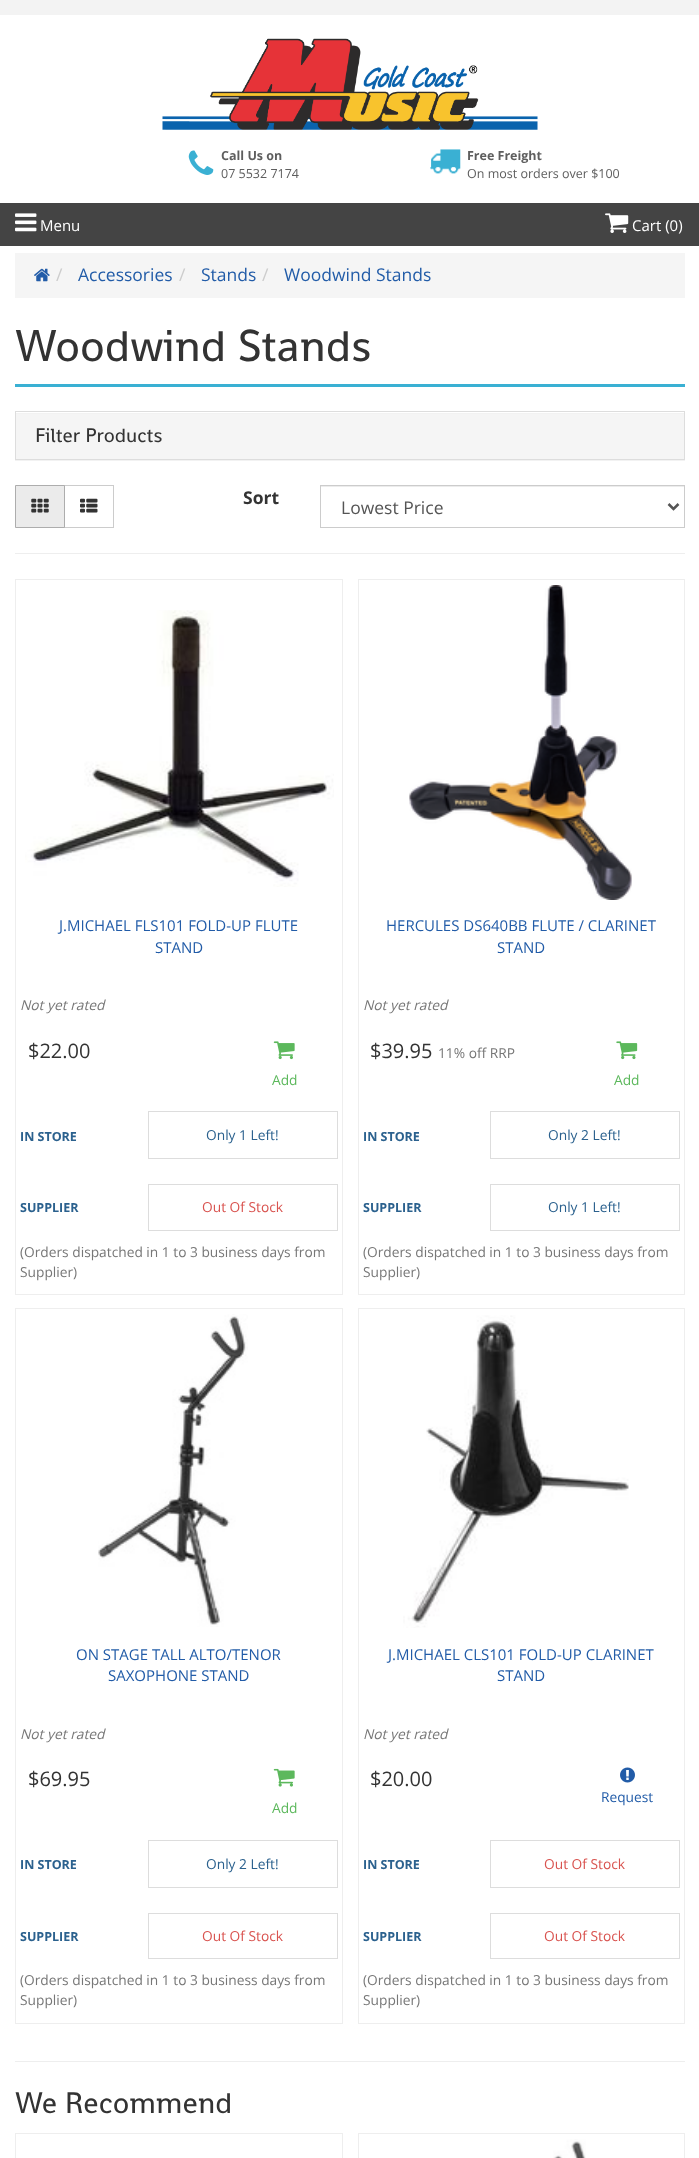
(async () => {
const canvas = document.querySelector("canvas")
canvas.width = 699
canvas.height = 2158
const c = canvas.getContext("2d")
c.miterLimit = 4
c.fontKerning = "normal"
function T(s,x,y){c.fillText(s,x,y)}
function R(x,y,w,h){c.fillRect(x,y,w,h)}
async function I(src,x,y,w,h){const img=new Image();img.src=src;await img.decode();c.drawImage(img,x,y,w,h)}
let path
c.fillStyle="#fff"
R(0,0,699,2158)
c.fillStyle="#f3f3f3"
R(0,0,699,15)
await I("1.png",162,38,376,92)
await I("2.png",188,150,26,25)
c.font="bold 12.5px Open Sans"
c.fillStyle="#5e5e5e"
T("Call Us on",221,160)
c.font="12.5px Open Sans"
T("07 5532 7174",221,178)
await I("3.png",430,149,31,25)
c.font="bold 12.5px Open Sans"
T("Free Freight",467,160)
c.font="12.5px Open Sans"
T("On most orders over $100",467,178)
c.fillStyle="#444"
R(0,203,699,43)
await I("4.png",15,213,22,19)
c.font="15px Open Sans"
c.fillStyle="#fff"
T("Menu",40,231)
await I("5.png",605,213,24,20)
T("Cart (0)",632,231)
c.fillStyle="#f5f5f5"
R(15,253,670,45)
await I("6.png",34,268,16,14)
c.font="17.5px Open Sans"
c.fillStyle="#ccc"
T("/",56,281)
c.fillStyle="#225ca8"
T("Accessories",78,281)
c.fillStyle="#ccc"
T("/",179,281)
c.fillStyle="#225ca8"
T("Stands",201,281)
c.fillStyle="#ccc"
T("/",262,281)
c.fillStyle="#225ca8"
T("Woodwind Stands",284,281)
c.fillStyle="#3ab0d3"
R(15,384,670,3)
c.font="45px Shanti"
c.fillStyle="#333"
T("Woodwind Stands",15,361)
c.fillStyle="#0000000d"
c.filter="blur(0.5px)"
c.beginPath()
c.rect(15,413,670,48)
c.fill()
c.filter="none"
c.strokeStyle="#ddd"
c.strokeRect(15.5,411.5,669,48)
c.fillStyle="#f5f5f5"
R(16,414,668,45)
c.font="20px Shanti"
c.fillStyle="#333"
T("Filter Products",35,442)
c.strokeStyle="#ccc"
c.strokeRect(64.5,485.5,49,42)
c.fillStyle="#ebebeb"
c.beginPath()
c.rect(15.5,485.5,49,42)
c.fill()
c.strokeStyle="#adadad"
c.stroke()
await I("7.png",31,498,18,15)
await I("8.png",80,498,18,15)
c.font="bold 17.5px Open Sans"
c.fillStyle="#333"
T("Sort",243,504)
c.fillStyle="#ececec"
R(321,486,363,1)
c.strokeStyle="#ccc"
c.strokeRect(320.5,485.5,364,42)
path = new Path2D("M668.5 504l5 5l5-5")
c.strokeStyle="#555"
c.lineWidth=2.5
c.stroke(path)
c.font="17.5px Open Sans"
c.fillStyle="#555"
T("Lowest Price",341,514)
c.fillStyle="#eee"
R(15,553,670,1)
c.strokeStyle="#eee"
c.lineWidth=1
c.strokeRect(15.5,579.5,327,715)
await I("9.png",25,610,309,277)
c.font="15px Open Sans"
c.fillStyle="#225ca8"
T("J.MICHAEL FLS101 FOLD-UP FLUTE",59,931)
T("STAND",155,953)
c.font="italic 13.75px Open Sans"
c.fillStyle="#777"
T("Not yet rated",20,1010)
c.font="20px Open Sans"
c.fillStyle="#333"
T("$22.00",28,1058)
await I("10.png",273,1041,22,19)
c.font="13.75px Open Sans"
c.fillStyle="#5cb85c"
T("Add",272,1085)
c.font="bold 12.5px Open Sans"
c.fillStyle="#2b618e"
T("IN STORE",20,1141)
c.strokeStyle="#ddd"
c.strokeRect(148.5,1111.5,189,47)
c.font="13.75px Open Sans"
T("Only 1 Left!",206,1140)
c.font="bold 12.5px Open Sans"
T("SUPPLIER",20,1212)
c.strokeRect(148.5,1184.5,189,46)
c.font="13.75px Open Sans"
c.fillStyle="#d9534f"
T("Out Of Stock",202,1212)
c.fillStyle="#777"
T("(Orders dispatched in 1 to 3 business days from",20,1257)
T("Supplier)",20,1277)
c.strokeStyle="#eee"
c.strokeRect(358.5,579.5,326,715)
await I("11.png",409,585,223,315)
c.font="15px Open Sans"
c.fillStyle="#225ca8"
T("HERCULES DS640BB FLUTE / CLARINET",386,931)
T("STAND",497,953)
c.font="italic 13.75px Open Sans"
c.fillStyle="#777"
T("Not yet rated",363,1010)
c.font="20px Open Sans"
c.fillStyle="#333"
T("$39.95",370,1058)
c.font="13.75px Open Sans"
c.fillStyle="#777"
T("11% off RRP",438,1058)
await I("12.png",616,1041,22,19)
c.fillStyle="#5cb85c"
T("Add",614,1085)
c.font="bold 12.5px Open Sans"
c.fillStyle="#2b618e"
T("IN STORE",363,1141)
c.strokeStyle="#ddd"
c.strokeRect(490.5,1111.5,189,47)
c.font="13.75px Open Sans"
T("Only 2 Left!",548,1140)
c.font="bold 12.5px Open Sans"
T("SUPPLIER",363,1212)
c.strokeRect(490.5,1184.5,189,46)
c.font="13.75px Open Sans"
T("Only 1 Left!",548,1212)
c.fillStyle="#777"
T("(Orders dispatched in 1 to 3 business days from",363,1257)
T("Supplier)",363,1277)
c.strokeStyle="#eee"
c.strokeRect(15.5,1308.5,327,715)
await I("13.png",98,1314,150,313)
c.font="15px Open Sans"
c.fillStyle="#225ca8"
T("ON STAGE TALL ALTO/TENOR",76,1660)
T("SAXOPHONE STAND",108,1681)
c.font="italic 13.75px Open Sans"
c.fillStyle="#777"
T("Not yet rated",20,1739)
c.font="20px Open Sans"
c.fillStyle="#333"
T("$69.95",28,1786)
await I("14.png",273,1768,22,19)
c.font="13.75px Open Sans"
c.fillStyle="#5cb85c"
T("Add",272,1813)
c.font="bold 12.5px Open Sans"
c.fillStyle="#2b618e"
T("IN STORE",20,1869)
c.strokeStyle="#ddd"
c.strokeRect(148.5,1840.5,189,47)
c.font="13.75px Open Sans"
T("Only 2 Left!",206,1869)
c.font="bold 12.5px Open Sans"
T("SUPPLIER",20,1941)
c.strokeRect(148.5,1913.5,189,45)
c.font="13.75px Open Sans"
c.fillStyle="#d9534f"
T("Out Of Stock",202,1941)
c.fillStyle="#777"
T("(Orders dispatched in 1 to 3 business days from",20,1985)
T("Supplier)",20,2005)
c.strokeStyle="#eee"
c.strokeRect(358.5,1308.5,326,715)
await I("15.png",403,1315,226,313)
c.font="15px Open Sans"
c.fillStyle="#225ca8"
T("J.MICHAEL CLS101 FOLD-UP CLARINET",388,1660)
T("STAND",497,1681)
c.font="italic 13.75px Open Sans"
c.fillStyle="#777"
T("Not yet rated",363,1739)
c.font="20px Open Sans"
c.fillStyle="#333"
T("$20.00",370,1786)
await I("16.png",620,1767,15,16)
c.font="13.75px Open Sans"
c.fillStyle="#225ca8"
T("Request",601,1802)
c.font="bold 12.5px Open Sans"
c.fillStyle="#2b618e"
T("IN STORE",363,1869)
c.strokeStyle="#ddd"
c.strokeRect(490.5,1840.5,189,47)
c.font="13.75px Open Sans"
c.fillStyle="#d9534f"
T("Out Of Stock",544,1869)
c.font="bold 12.5px Open Sans"
c.fillStyle="#2b618e"
T("SUPPLIER",363,1941)
c.strokeRect(490.5,1913.5,189,45)
c.font="13.75px Open Sans"
c.fillStyle="#d9534f"
T("Out Of Stock",544,1941)
c.fillStyle="#777"
T("(Orders dispatched in 1 to 3 business days from",363,1985)
T("Supplier)",363,2005)
c.fillStyle="#eee"
R(15,2061,670,1)
c.font="30px Shanti"
c.fillStyle="#333"
T("We Recommend",15,2113)
c.strokeStyle="#eee"
c.strokeRect(15.5,2133.5,327,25)
c.strokeRect(358.5,2133.5,326,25)
await I("17.png",553,2139,33,19)
})()
